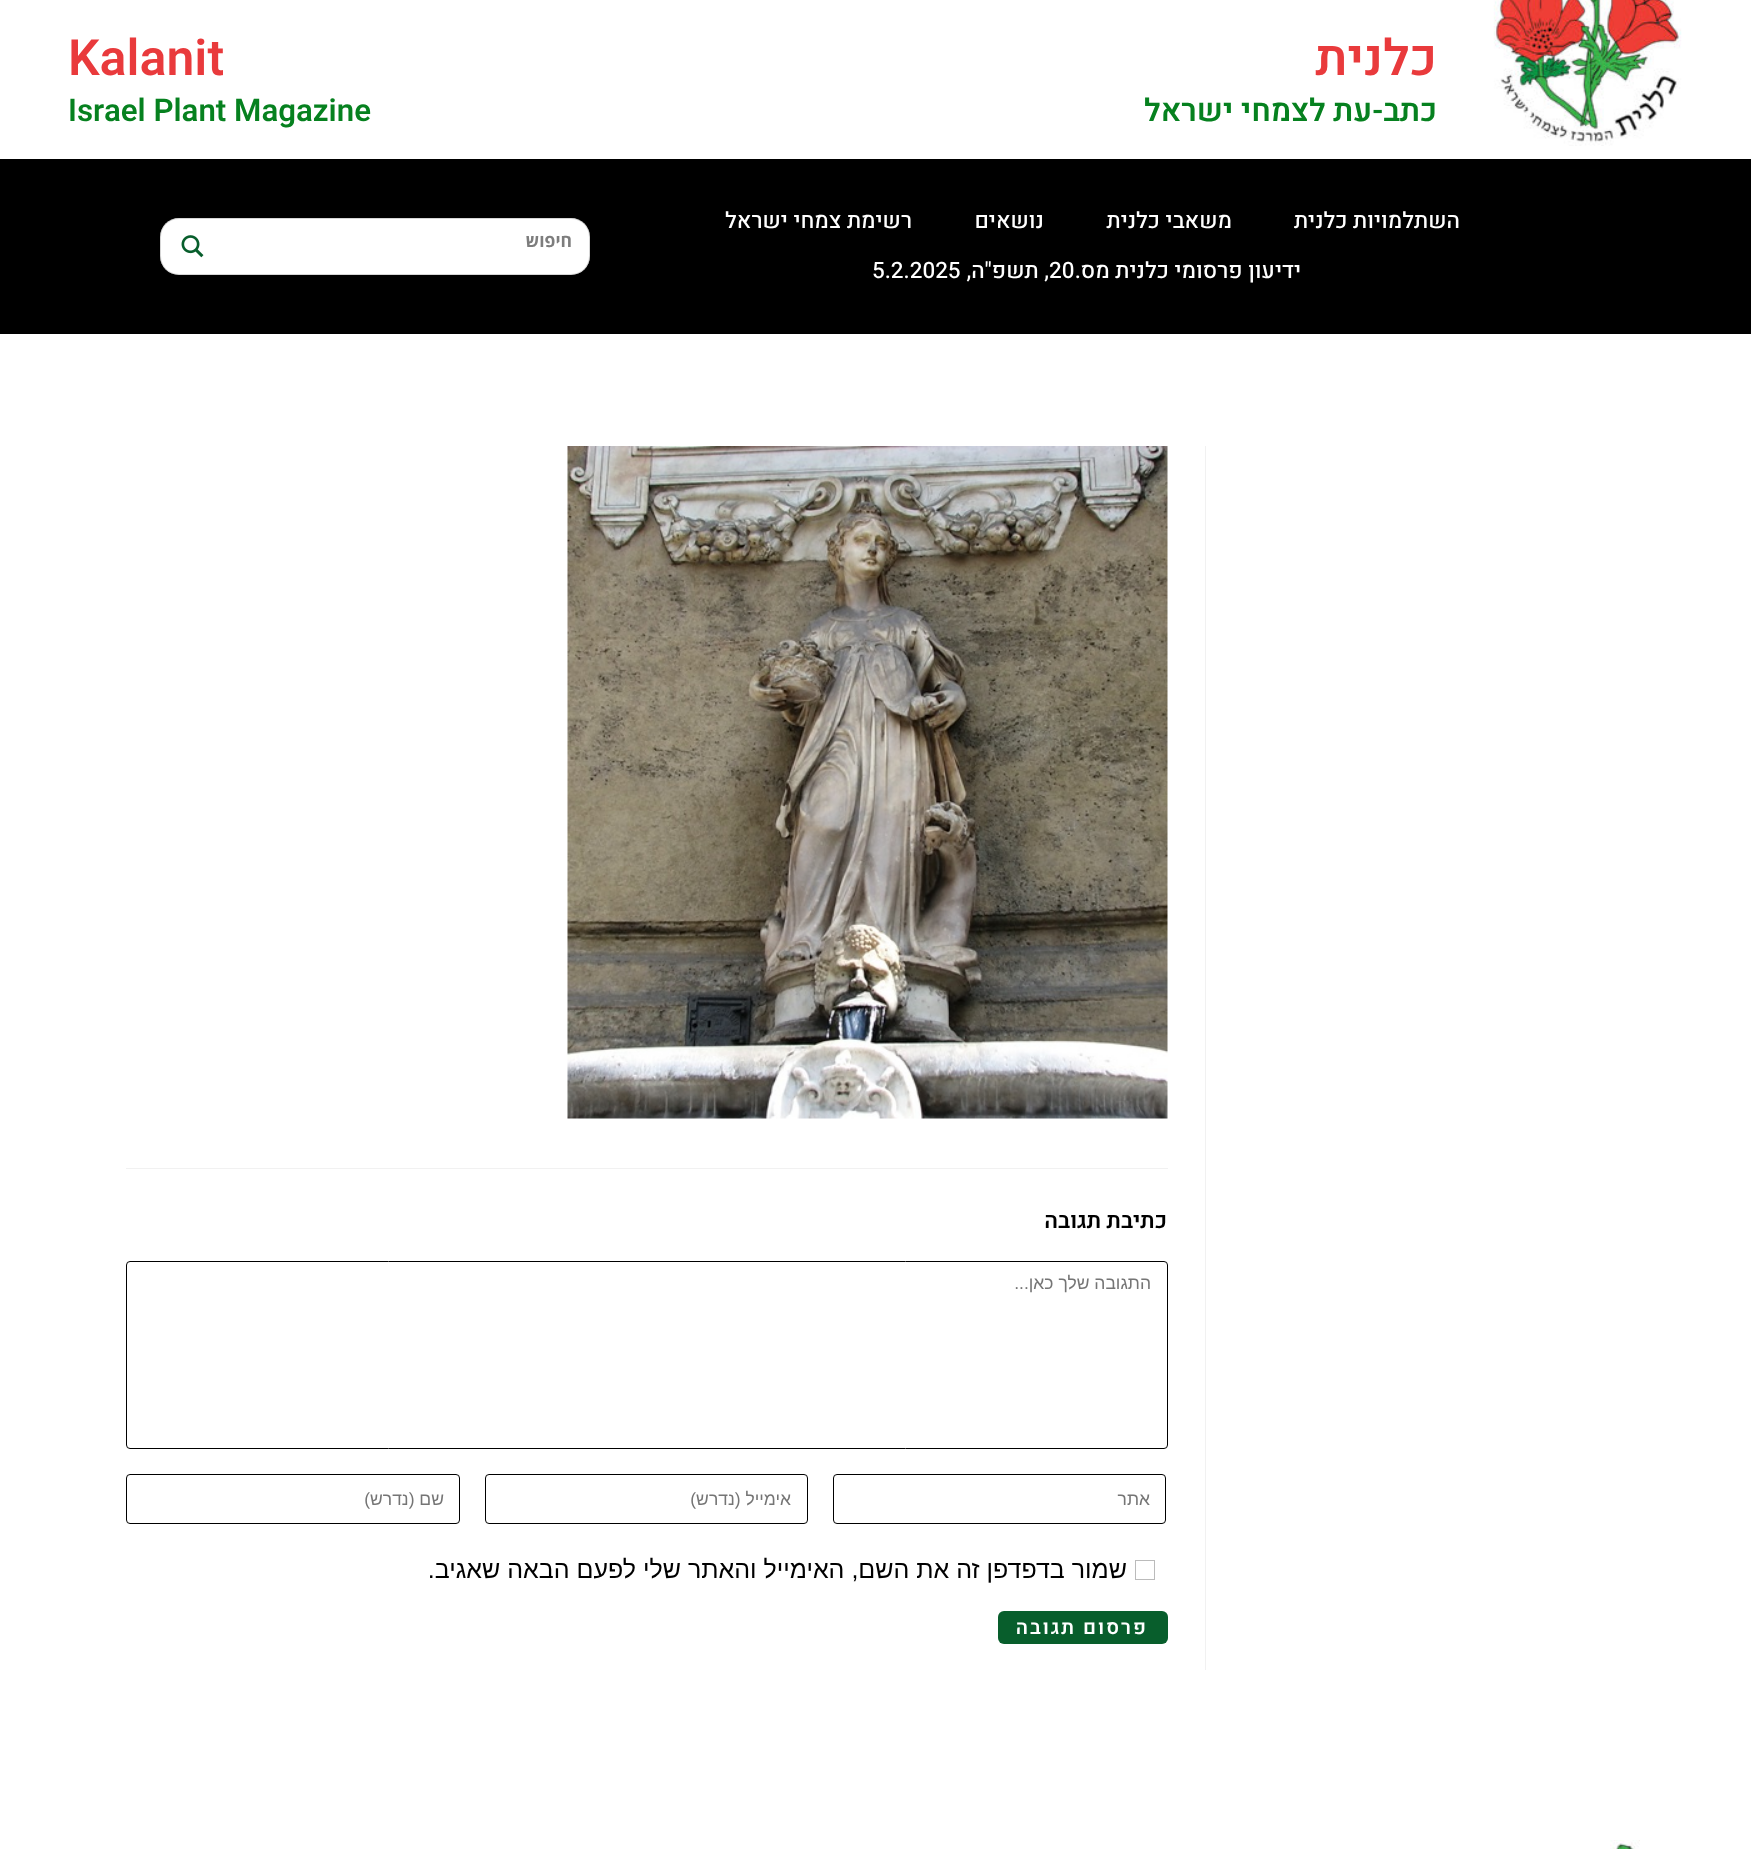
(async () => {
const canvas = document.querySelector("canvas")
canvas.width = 1751
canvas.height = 1849
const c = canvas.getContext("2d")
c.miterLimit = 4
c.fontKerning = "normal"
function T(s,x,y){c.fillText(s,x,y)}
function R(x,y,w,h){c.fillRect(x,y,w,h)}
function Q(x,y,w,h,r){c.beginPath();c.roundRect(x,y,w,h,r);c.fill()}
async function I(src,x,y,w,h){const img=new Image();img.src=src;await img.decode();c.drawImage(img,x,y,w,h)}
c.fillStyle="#fff"
R(0,0,1751,1849)
await I("1.png",1493,0,189,146)
c.direction="rtl"
c.font="600 50px Heebo"
c.fillStyle="#e93a3c"
T("כלנית",1437,75)
c.font="600 31.25px Heebo"
c.fillStyle="#06811f"
T("כתב-עת לצמחי ישראל",1437,121)
c.direction="ltr"
c.font="600 50px Heebo"
c.fillStyle="#e93a3c"
T("Kalanit",68,75)
c.font="600 31.25px Heebo"
c.fillStyle="#06811f"
T("Israel Plant Magazine",68,121)
c.fillStyle="#000"
R(0,159,1751,175)
c.direction="rtl"
c.font="500 22.5px Heebo"
c.fillStyle="#fff"
T("השתלמויות כלנית",1460,228)
T("משאבי כלנית",1232,228)
T("נושאים",1044,228)
T("רשימת צמחי ישראל",912,228)
T("ידיעון פרסומי כלנית מס.",1301,278)
c.direction="ltr"
T("20",1049,278)
c.direction="rtl"
T(", תשפ\"ה,",1049,278)
c.direction="ltr"
T("5.2.2025",872,278)
Q(160,218,430,57,19)
c.beginPath()
c.roundRect(160.5,218.5,429,56,18.5)
c.strokeStyle="#7a7a7a4f"
c.stroke()
c.direction="rtl"
c.font="bold 17.5px Open Sans"
c.fillStyle="#7d7d7d"
T("חיפוש",572,247)
await I("2.png",181,235,23,23)
c.fillStyle="#f1f1f1"
R(1205,446,1,1224)
await I("3.png",567,446,601,673)
R(126,1168,1042,1)
c.font="600 22.5px Heebo"
c.fillStyle="#000"
T("כתיבת תגובה",1167,1228)
c.beginPath()
c.roundRect(126.5,1261.5,1041,187,3.5)
c.strokeStyle="#000"
c.stroke()
c.font="17.5px Liberation Sans"
c.fillStyle="#757575"
T("התגובה שלך כאן...",1151,1289)
c.beginPath()
c.roundRect(833.5,1474.5,332,49,3.5)
c.stroke()
T("אתר",1150,1505)
c.beginPath()
c.roundRect(485.5,1474.5,322,49,3.5)
c.stroke()
T("אימייל (נדרש)",791,1505)
c.beginPath()
c.roundRect(126.5,1474.5,333,49,3.5)
c.stroke()
T("שם (נדרש)",444,1505)
c.strokeStyle="#bbb"
c.strokeRect(1135.5,1560.5,19,19)
c.font="25px Liberation Sans"
c.fillStyle="#000"
T("שמור בדפדפן זה את השם, האימייל והאתר שלי לפעם הבאה שאגיב.",1127,1578)
c.fillStyle="#085e2c"
Q(998,1611,170,33,6)
c.letterSpacing="2px"
c.font="600 20px Heebo"
c.fillStyle="#fff"
T("פרסום תגובה",1148,1634)
await I("4.png",1610,1840,30,9)
})()
